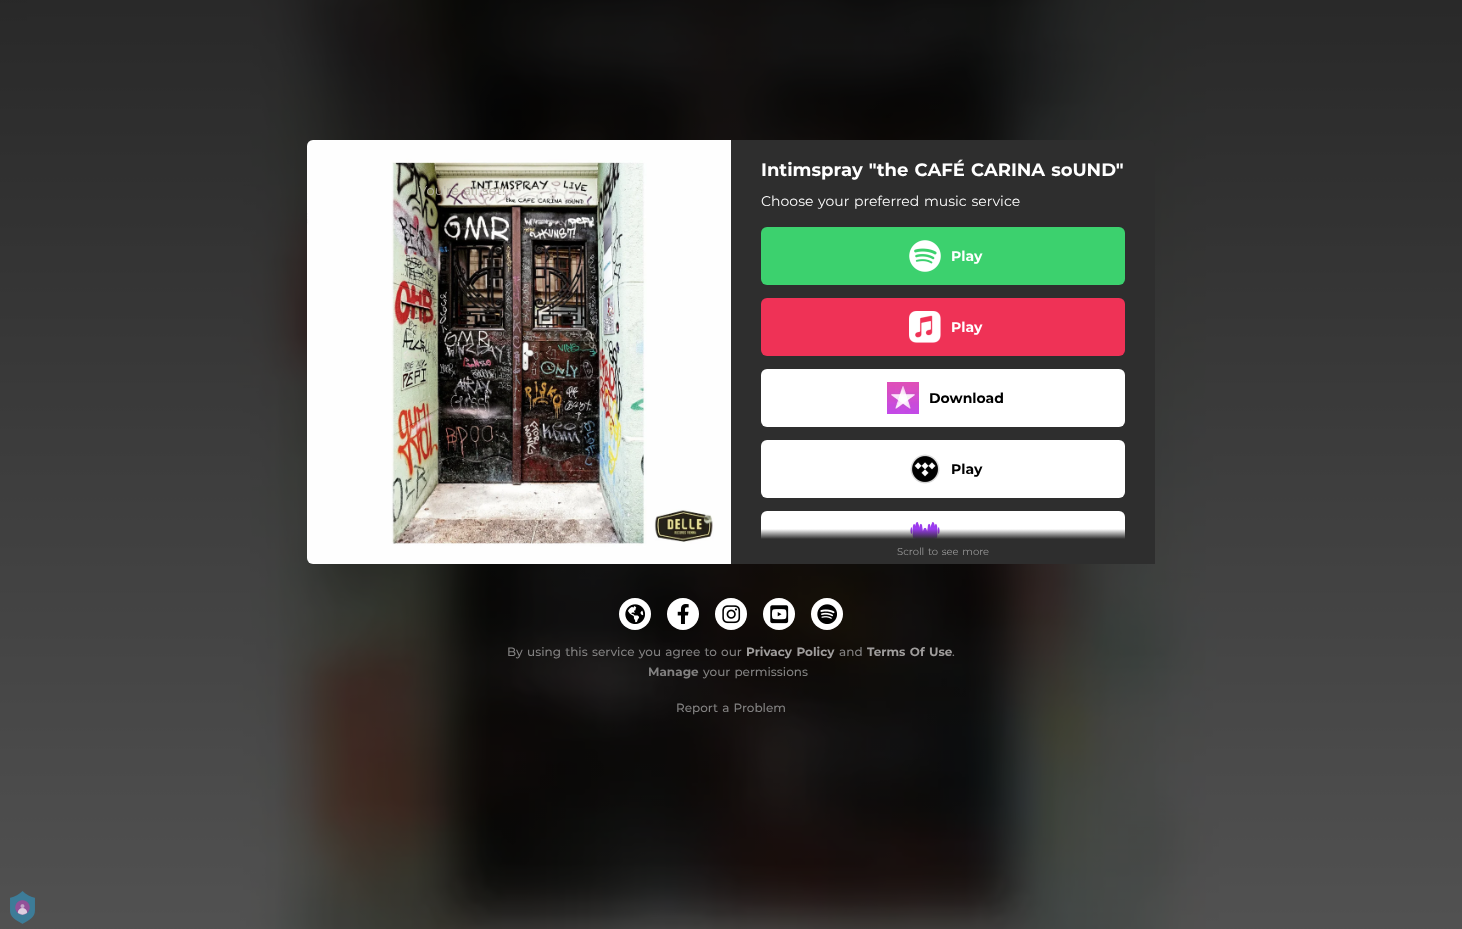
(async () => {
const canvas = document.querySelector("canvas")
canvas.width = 1462
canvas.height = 929
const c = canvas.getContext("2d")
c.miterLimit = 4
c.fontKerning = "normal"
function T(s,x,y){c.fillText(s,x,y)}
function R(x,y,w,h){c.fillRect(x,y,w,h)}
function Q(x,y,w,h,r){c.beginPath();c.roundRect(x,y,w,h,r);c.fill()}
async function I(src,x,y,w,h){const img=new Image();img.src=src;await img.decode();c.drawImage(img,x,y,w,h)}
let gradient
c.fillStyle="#fff"
R(0,0,1462,929)
await I("1.png",0,0,1462,929)
await I("2.png",307,140,424,424)
c.wordSpacing="1px"
c.font="13px Montserrat"
c.fillStyle="#b1aea1"
T("You're all set!",419,195)
c.fillStyle="#2e2e2e"
c.beginPath()
c.roundRect(731,140,424,424,[0,6,6,0])
c.fill()
c.font="bold 18px Montserrat"
c.fillStyle="#fff"
T("Intimspray \"the CAFÉ CARINA soUND\"",761,176)
c.font="14px Montserrat"
T("Choose your preferred music service",761,206)
c.fillStyle="#3cd16e"
Q(761,227,364,58,6)
await I("3.png",909,240,32,32)
c.wordSpacing="0px"
c.font="bold 14px Montserrat"
c.fillStyle="#fff"
T("Play",951,261)
c.fillStyle="#ef3256"
Q(761,298,364,58,6)
await I("4.png",909,311,32,32)
c.fillStyle="#fff"
T("Play",951,332)
Q(761,369,364,58,6)
await I("5.png",887,382,32,32)
c.fillStyle="#000"
T("Download",929,403)
c.fillStyle="#fff"
Q(761,440,364,58,6)
await I("6.png",910,454,30,30)
c.fillStyle="#000"
T("Play",951,474)
c.save()
c.beginPath()
c.roundRect(731,140,424,424,[0,6,6,0])
c.clip()
c.fillStyle="#fff"
Q(761,511,364,58,6)
c.restore()
await I("7.png",910,522,30,17)
gradient = c.createLinearGradient(943,539,943,529)
gradient.addColorStop(0,"#2e2e2e")
gradient.addColorStop(1,"#2e2e2e00")
c.fillStyle = gradient
R(761,529,364,10)
c.fillStyle="#2e2e2e"
R(761,539,394,25)
c.wordSpacing="1px"
c.font="10px Montserrat"
c.fillStyle="#999"
T("Scroll to see more",897,555)
c.fillStyle="#fff"
c.beginPath()
c.arc(635,614,16,0,7)
c.fill()
await I("8.png",625,604,20,20)
c.beginPath()
c.arc(683,614,16,0,7)
c.fill()
await I("9.png",677,604,12,20)
c.beginPath()
c.arc(731,614,16,0,7)
c.fill()
await I("10.png",722,605,19,19)
c.beginPath()
c.arc(779,614,16,0,7)
c.fill()
await I("11.png",770,605,19,19)
c.beginPath()
c.arc(827,614,16,0,7)
c.fill()
await I("12.png",817,604,20,20)
c.font="500 12px Montserrat"
c.fillStyle="#828181"
T("By using this service you agree to our",507,656)
c.font="bold 12px Montserrat"
c.fillStyle="#9f9d9c"
T("Privacy Policy",746,656)
c.wordSpacing="0px"
c.font="500 12px Montserrat"
c.fillStyle="#828181"
T("and",839,656)
c.wordSpacing="1px"
c.font="bold 12px Montserrat"
c.fillStyle="#9f9d9c"
T("Terms Of Use",867,656)
c.wordSpacing="0px"
c.font="500 12px Montserrat"
c.fillStyle="#828181"
T(".",952,656)
c.font="bold 12px Montserrat"
T("Manage",648,676)
c.wordSpacing="1px"
c.font="500 12px Montserrat"
T("your permissions",703,676)
T("Report a Problem",676,712)
await I("13.png",10,891,25,33)
})()
